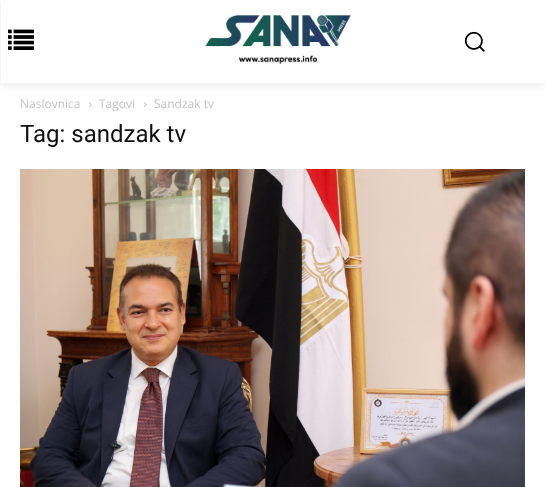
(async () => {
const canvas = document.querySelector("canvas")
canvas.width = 545
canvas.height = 487
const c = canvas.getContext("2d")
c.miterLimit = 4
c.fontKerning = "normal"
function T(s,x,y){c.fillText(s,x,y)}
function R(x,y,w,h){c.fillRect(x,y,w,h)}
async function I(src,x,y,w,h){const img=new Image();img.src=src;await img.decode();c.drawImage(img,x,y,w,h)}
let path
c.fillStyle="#fff"
R(0,0,545,487)
await I("1.png",8,29,26,21)
await I("2.png",205,15,146,49)
await I("3.png",464,31,21,21)
c.save()
path = new Path2D("M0 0h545v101h-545zm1 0h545v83h-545z")
c.clip(path,"evenodd")
c.fillStyle="#00000017"
c.filter="blur(5px)"
c.beginPath()
c.rect(1,2,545,83)
c.fill()
c.filter="none"
c.restore()
c.font="12px Open Sans"
c.fillStyle="#c3c3c3"
T("Naslovnica",20,108)
await I("4.png",89,102,3,5)
T("Tagovi",99,108)
await I("4.png",144,102,3,5)
T("Sandzak tv",154,108)
c.font="24px Roboto"
c.fillStyle="#111"
T("Tag: sandzak tv",20,142)
await I("5.png",20,169,505,318)
})()
